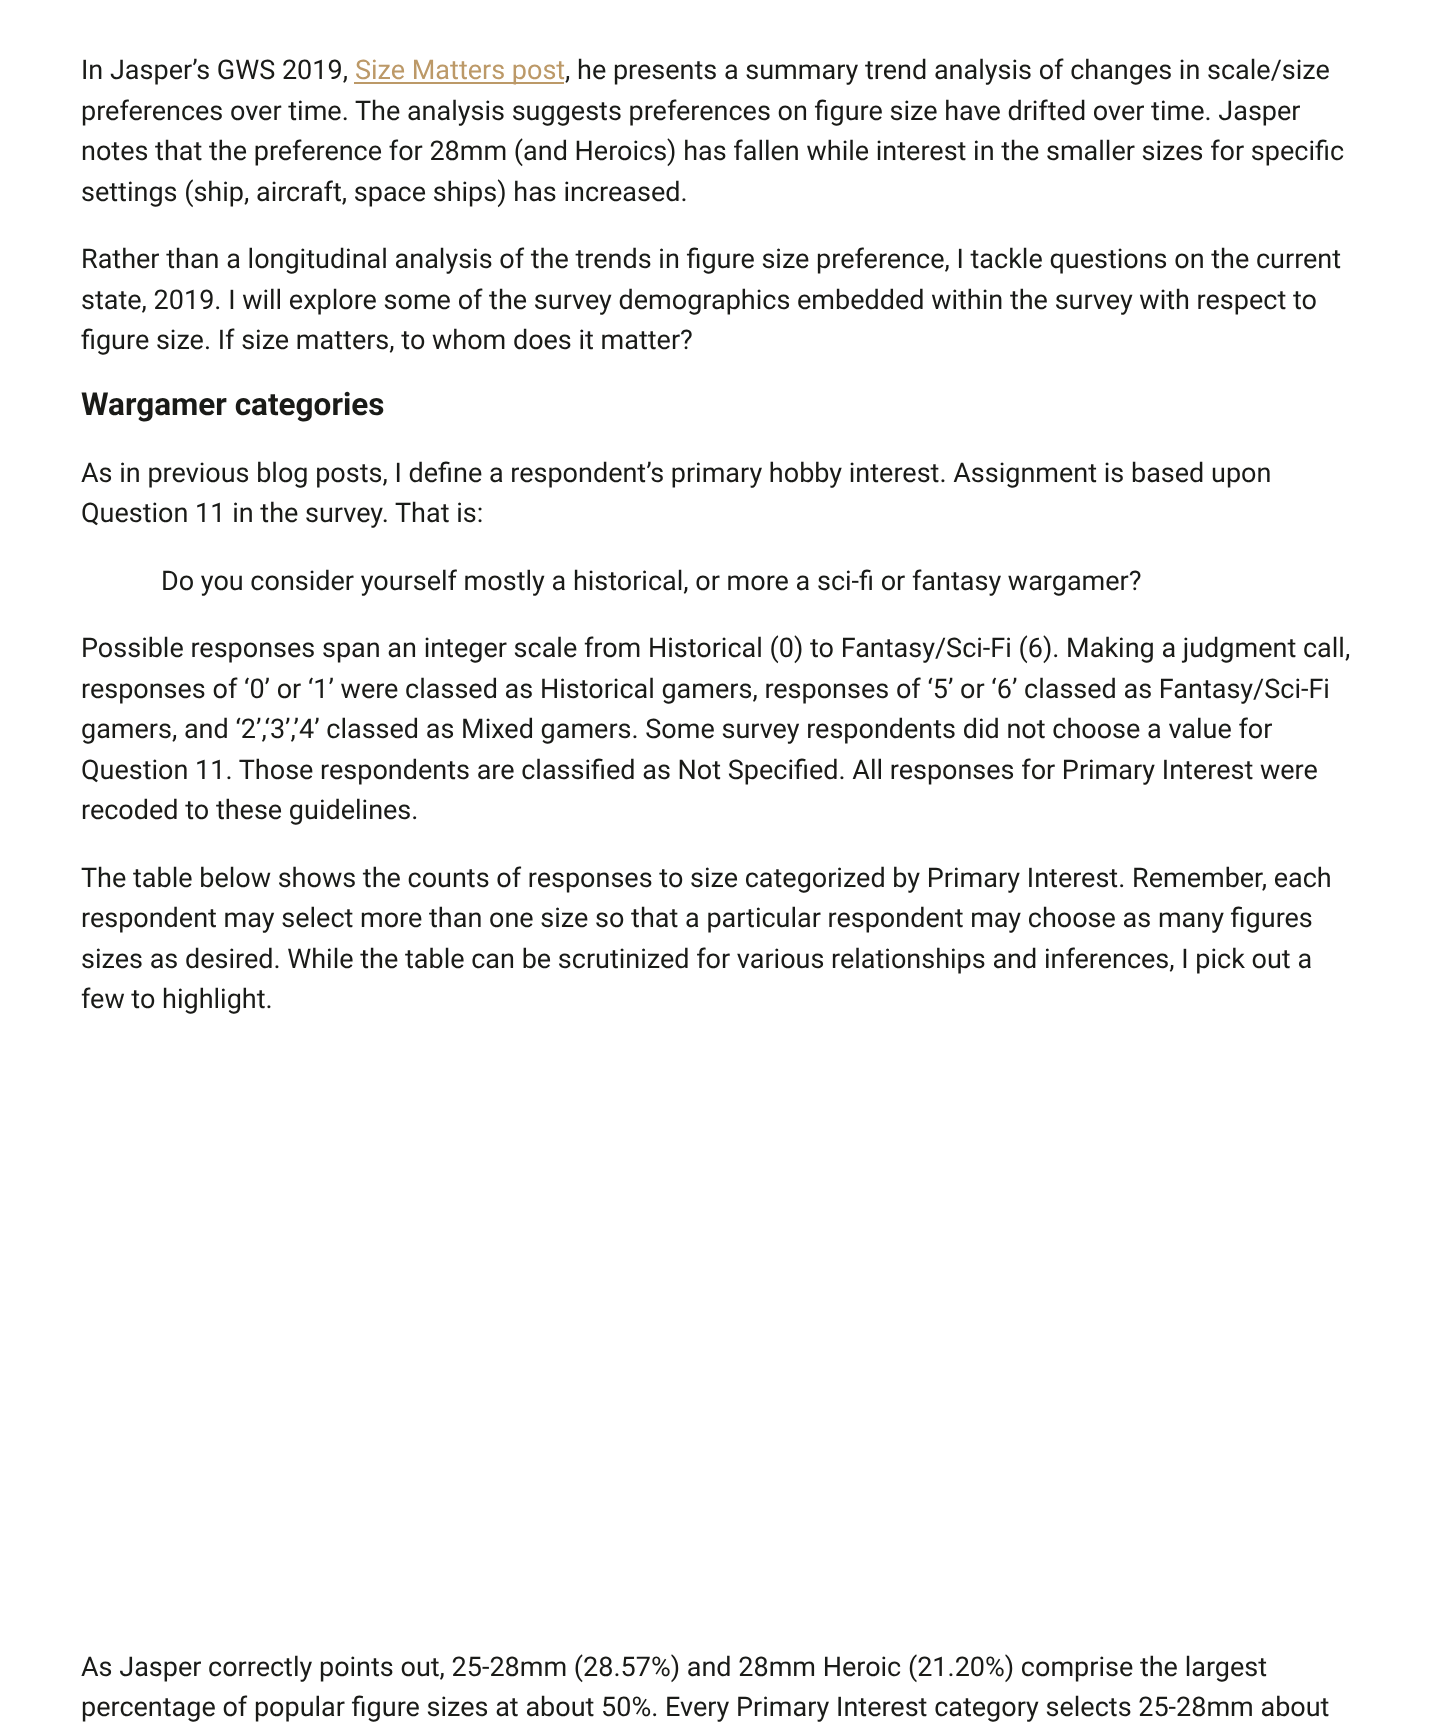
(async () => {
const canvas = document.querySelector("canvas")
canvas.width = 1439
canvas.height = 1730
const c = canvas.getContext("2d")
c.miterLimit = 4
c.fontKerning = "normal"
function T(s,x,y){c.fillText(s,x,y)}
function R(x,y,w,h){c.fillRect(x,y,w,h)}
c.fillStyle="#fff"
R(0,0,1439,1730)
c.font="27px Roboto"
c.fillStyle="#1a1b18"
T("In Jasper’s GWS 2019,",81,79)
c.fillStyle="#bc9968"
R(354,82,210,2)
T("Size Matters post",355,79)
c.fillStyle="#1a1b18"
T(", he presents a summary trend analysis of changes in scale/size",565,79)
T("preferences over time. The analysis suggests preferences on figure size have drifted over time. Jasper",81,120)
T("notes that the preference for 28mm (and Heroics) has fallen while interest in the smaller sizes for specific",81,160)
T("settings (ship, aircraft, space ships) has increased.",81,201)
T("Rather than a longitudinal analysis of the trends in figure size preference, I tackle questions on the current",81,268)
T("state, 2019. I will explore some of the survey demographics embedded within the survey with respect to",81,309)
T("figure size. If size matters, to whom does it matter?",81,349)
c.font="bold 31.5px Roboto"
T("Wargamer categories",81,415)
c.font="27px Roboto"
T("As in previous blog posts, I define a respondent’s primary hobby interest. Assignment is based upon",81,482)
T("Question 11 in the survey. That is:",81,522)
T("Do you consider yourself mostly a historical, or more a sci-fi or fantasy wargamer?",161,590)
T("Possible responses span an integer scale from Historical (0) to Fantasy/Sci-Fi (6). Making a judgment call,",81,657)
T("responses of ‘0’ or ‘1’ were classed as Historical gamers, responses of ‘5’ or ‘6’ classed as Fantasy/Sci-Fi",81,698)
T("gamers, and ‘2’,‘3’,’4’ classed as Mixed gamers. Some survey respondents did not choose a value for",81,738)
T("Question 11. Those respondents are classified as Not Specified. All responses for Primary Interest were",81,779)
T("recoded to these guidelines.",81,819)
T("The table below shows the counts of responses to size categorized by Primary Interest. Remember, each",81,887)
T("respondent may select more than one size so that a particular respondent may choose as many figures",81,927)
T("sizes as desired. While the table can be scrutinized for various relationships and inferences, I pick out a",81,968)
T("few to highlight.",81,1008)
T("As Jasper correctly points out, 25-28mm (28.57%) and 28mm Heroic (21.20%) comprise the largest",81,1676)
T("percentage of popular figure sizes at about 50%. Every Primary Interest category selects 25-28mm about",81,1716)
})()
